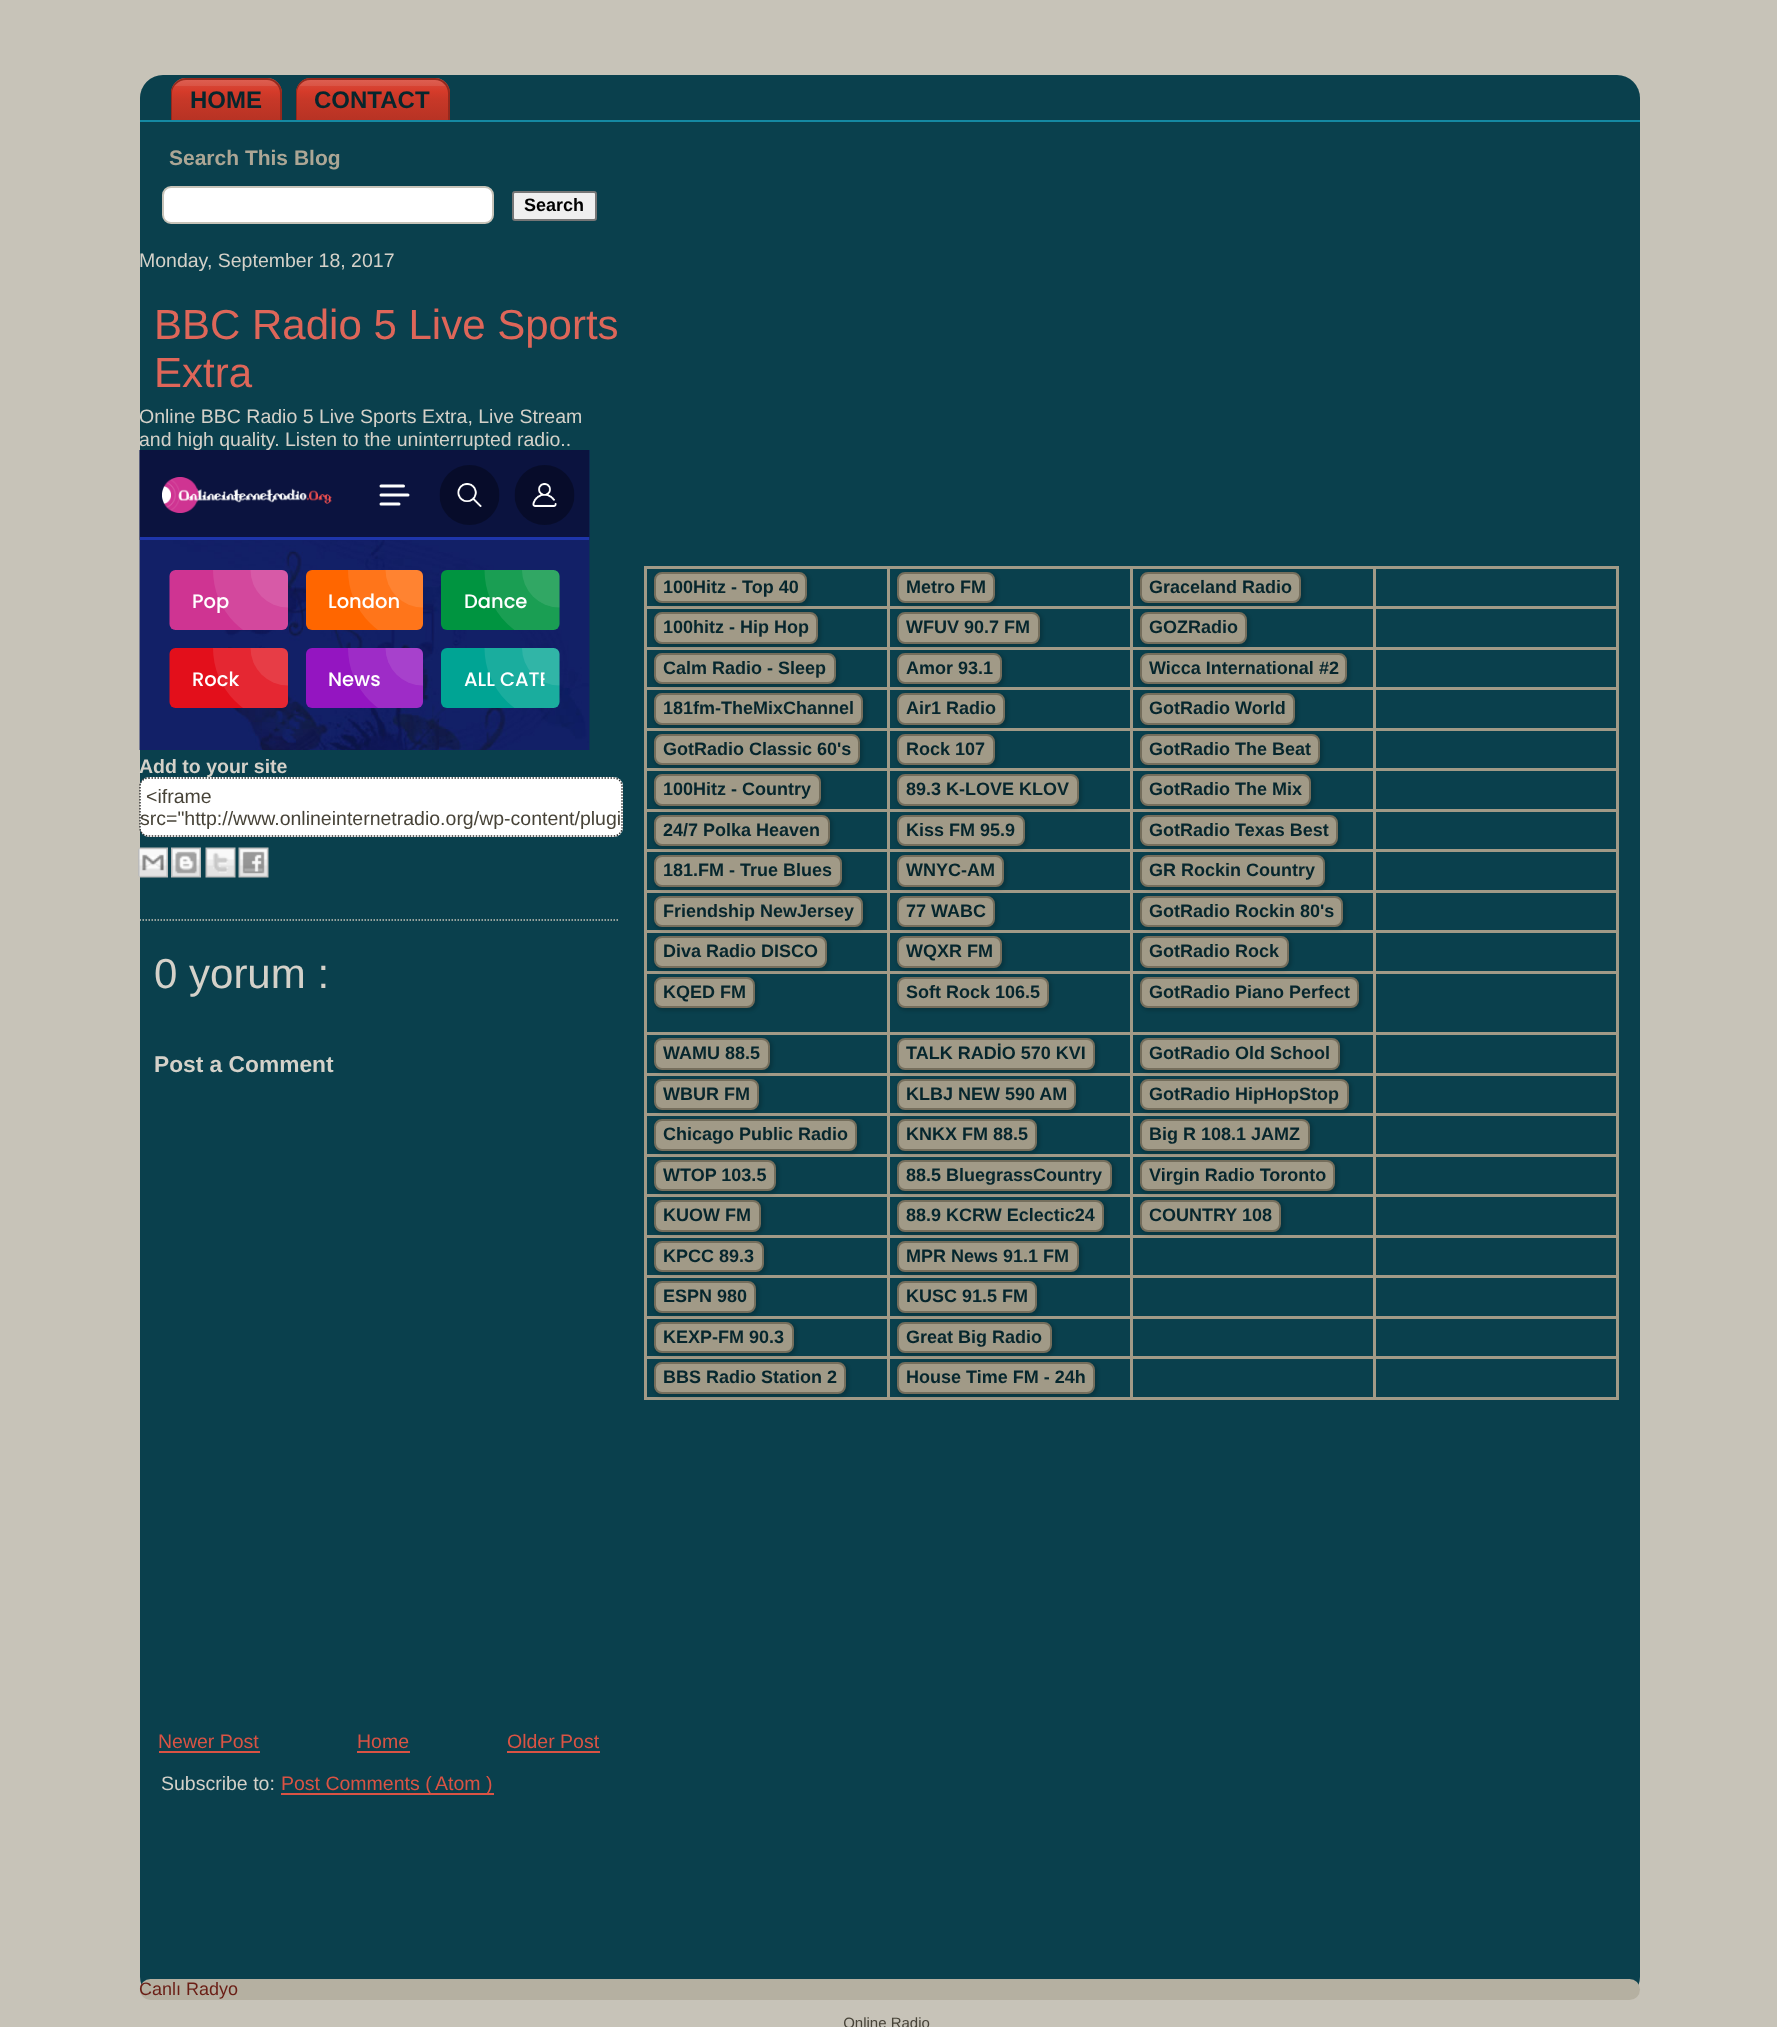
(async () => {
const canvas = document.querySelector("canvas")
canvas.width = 1777
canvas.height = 2027
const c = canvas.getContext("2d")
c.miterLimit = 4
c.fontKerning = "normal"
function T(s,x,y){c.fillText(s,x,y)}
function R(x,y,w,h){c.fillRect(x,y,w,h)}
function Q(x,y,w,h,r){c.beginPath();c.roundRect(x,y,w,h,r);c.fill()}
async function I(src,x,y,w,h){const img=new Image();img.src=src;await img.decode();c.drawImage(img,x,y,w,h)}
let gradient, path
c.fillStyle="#c7c3b8"
R(0,0,1777,2027)
c.fillStyle="#0a404d"
Q(140,75,1500,1925,23)
c.fillStyle="#1589a2"
R(140,120,1500,2)
gradient = c.createLinearGradient(227,78,227,120)
gradient.addColorStop(0,"#dd6255")
gradient.addColorStop(.1,"#dc5a4c")
gradient.addColorStop(.2,"#da5344")
gradient.addColorStop(.2,"#d74333")
gradient.addColorStop(.32,"#d53b2a")
gradient.addColorStop(.5,"#c83828")
gradient.addColorStop(1,"#b73324")
c.fillStyle = gradient
c.beginPath()
c.roundRect(171,78,111,42,[15,15,0,0])
c.fill()
c.fillStyle="#95291d"
path = new Path2D("M186 78h81c8 0 15 7 15 15v27h-111v-27c0-8 7-15 15-15zm0 2h81c7 0 13 6 13 13v27h-108v-27c0-7 7-13 14-13z")
c.fill(path,"evenodd")
c.font="bold 24px Liberation Sans"
c.fillStyle="#06262d"
T("HOME",190,108)
gradient = c.createLinearGradient(373,78,373,120)
gradient.addColorStop(0,"#dd6255")
gradient.addColorStop(.1,"#dc5a4c")
gradient.addColorStop(.2,"#da5344")
gradient.addColorStop(.2,"#d74333")
gradient.addColorStop(.32,"#d53b2a")
gradient.addColorStop(.5,"#c83828")
gradient.addColorStop(1,"#b73324")
c.fillStyle = gradient
c.beginPath()
c.roundRect(296,78,154,42,[15,15,0,0])
c.fill()
c.fillStyle="#95291d"
path = new Path2D("M310 78h125c8 0 15 7 15 15v27h-154v-27c0-8 6-15 14-15zm0 2h125c7 0 13 6 13 13v27h-151v-27c0-7 6-13 13-13z")
c.fill(path,"evenodd")
c.fillStyle="#06262d"
T("CONTACT",314,108)
c.font="bold 21px Liberation Sans"
c.fillStyle="#aca695"
T("Search This Blog",169,165)
c.fillStyle="#fff"
c.beginPath()
c.roundRect(163,187,330,36,8)
c.fill()
c.strokeStyle="#c7c3b8"
c.lineWidth=2
c.stroke()
c.fillStyle="#efefef"
c.beginPath()
c.roundRect(513,192,83,28,2)
c.fill()
c.strokeStyle="#767676"
c.stroke()
c.font="bold 18px Liberation Sans"
c.fillStyle="#000"
T("Search",524,211)
c.font="19.5px Liberation Sans"
c.fillStyle="#d4d1c9"
T("Monday, September 18, 2017",139,267)
c.font="42px Liberation Sans"
c.fillStyle="#de6659"
T("BBC Radio 5 Live Sports",154,339)
T("Extra",154,387)
c.font="19.5px Liberation Sans"
c.fillStyle="#d4d1c9"
T("Online BBC Radio 5 Live Sports Extra, Live Stream",139,423)
T("and high quality. Listen to the uninterrupted radio..",139,446)
await I("1.png",139,450,451,300)
c.font="bold 19.5px Liberation Sans"
T("Add to your site",139,773)
c.fillStyle="#fff"
Q(140,777,483,60,9)
path = new Path2D("M148.5 778h465c4.5 0 8.5 3.5 8.5 8v42c0 4.5-4 8-8.5 8h-465c-4.5 0-8.5-3.5-8.5-8v-42c0-4.5 4-8 8.5-8z")
c.strokeStyle="#343434"
c.lineWidth=1.5
c.setLineDash([1.5,1.5])
c.stroke(path)
c.font="19.5px Liberation Sans"
c.fillStyle="#474338"
T("<iframe",146,803)
T("src=\"http://www.onlineinternetradio.org/wp-content/plugi",140,825)
await I("2.png",138,847,30,31)
await I("3.png",171,847,30,31)
await I("4.png",205,847,31,31)
await I("5.png",238,847,31,31)
path = new Path2D("M139.5 920h480")
c.strokeStyle="#c7c3b8"
c.stroke(path)
c.font="42px Liberation Sans"
c.fillStyle="#d4d1c9"
T("0 yorum :",154,988)
c.font="bold 22.75px Liberation Sans"
T("Post a Comment",154,1072)
c.font="19.5px Liberation Sans"
c.fillStyle="#da5344"
T("Newer Post",158,1748)
R(159,1751,101,2)
T("Home",357,1748)
R(357,1751,53,2)
T("Older Post",507,1748)
R(507,1751,93,2)
c.fillStyle="#d4d1c9"
T("Subscribe to:",161,1790)
c.fillStyle="#da5344"
R(281,1793,213,2)
T("Post Comments (",281,1790)
T("Atom )",435,1790)
c.fillStyle="#a19a87"
R(1373,566,246,3)
R(1373,606,246,3)
R(1373,647,246,3)
R(1373,687,246,3)
R(1373,728,246,3)
R(1373,768,246,3)
R(1373,809,246,3)
R(1373,849,246,3)
R(1373,890,246,3)
R(1373,930,246,3)
R(1373,971,246,3)
R(1373,1032,246,3)
R(1373,1073,246,3)
R(1373,1113,246,3)
R(1373,1154,246,3)
R(1373,1194,246,3)
R(1373,1235,246,3)
R(1373,1275,246,3)
R(1373,1316,246,3)
R(1373,1356,246,3)
R(1616,1356,3,44)
R(1373,1397,246,3)
R(1373,1356,3,44)
R(1130,1356,246,3)
R(1373,1316,3,43)
R(1130,1316,246,3)
R(1373,1275,3,44)
R(1130,1275,246,3)
R(1373,1235,3,43)
R(1130,1235,246,3)
R(1373,1194,3,44)
R(1130,1194,246,3)
R(1373,1154,3,43)
R(1130,1154,246,3)
R(1373,1113,3,44)
R(1130,1113,246,3)
R(1373,1073,3,43)
R(1130,1073,246,3)
R(1373,1032,3,44)
R(1130,1032,246,3)
R(1373,971,3,64)
R(1130,971,246,3)
R(1373,930,3,44)
R(1130,930,246,3)
R(1373,890,3,43)
R(1130,890,246,3)
R(1373,849,3,44)
R(1130,849,246,3)
R(1373,809,3,43)
R(1130,809,246,3)
R(1373,768,3,44)
R(1130,768,246,3)
R(1373,728,3,43)
R(1130,728,246,3)
R(1373,687,3,44)
R(1130,687,246,3)
R(1373,647,3,43)
R(1130,647,246,3)
R(1373,606,3,44)
R(1130,606,246,3)
R(1373,566,3,43)
R(1130,566,246,3)
R(1130,1397,246,3)
R(1130,1356,3,44)
R(887,1356,246,3)
R(1130,1316,3,43)
R(887,1316,246,3)
R(1130,1275,3,44)
R(887,1275,246,3)
R(1130,1235,3,43)
R(887,1235,246,3)
R(1130,1194,3,44)
R(887,1194,246,3)
R(1130,1154,3,43)
R(887,1154,246,3)
R(1130,1113,3,44)
R(887,1113,246,3)
R(1130,1073,3,43)
R(887,1073,246,3)
R(1130,1032,3,44)
R(887,1032,246,3)
R(1130,971,3,64)
R(887,971,246,3)
R(1130,930,3,44)
R(887,930,246,3)
R(1130,890,3,43)
R(887,890,246,3)
R(1130,849,3,44)
R(887,849,246,3)
R(1130,809,3,43)
R(887,809,246,3)
R(1130,768,3,44)
R(887,768,246,3)
R(1130,728,3,43)
R(887,728,246,3)
R(1130,687,3,44)
R(887,687,246,3)
R(1130,647,3,43)
R(887,647,246,3)
R(1130,606,3,44)
R(887,606,246,3)
R(1130,566,3,43)
R(887,566,246,3)
R(887,1397,246,3)
R(887,1356,3,44)
R(644,1356,246,3)
R(887,1316,3,43)
R(644,1316,246,3)
R(887,1275,3,44)
R(644,1275,246,3)
R(887,1235,3,43)
R(644,1235,246,3)
R(887,1194,3,44)
R(644,1194,246,3)
R(887,1154,3,43)
R(644,1154,246,3)
R(887,1113,3,44)
R(644,1113,246,3)
R(887,1073,3,43)
R(644,1073,246,3)
R(887,1032,3,44)
R(644,1032,246,3)
R(887,971,3,64)
R(644,971,246,3)
R(887,930,3,44)
R(644,930,246,3)
R(887,890,3,43)
R(644,890,246,3)
R(887,849,3,44)
R(644,849,246,3)
R(887,809,3,43)
R(644,809,246,3)
R(887,768,3,44)
R(644,768,246,3)
R(887,728,3,43)
R(644,728,246,3)
R(887,687,3,44)
R(644,687,246,3)
R(887,647,3,43)
R(644,647,246,3)
R(887,606,3,44)
R(644,606,246,3)
R(887,566,3,43)
R(644,566,246,3)
R(644,1397,246,3)
R(644,1356,3,44)
R(644,1316,3,43)
R(644,1275,3,44)
R(644,1235,3,43)
R(644,1194,3,44)
R(644,1154,3,43)
R(644,1113,3,44)
R(644,1073,3,43)
R(644,1032,3,44)
R(644,971,3,64)
R(644,930,3,44)
R(644,890,3,43)
R(644,849,3,44)
R(644,809,3,43)
R(644,768,3,44)
R(644,728,3,43)
R(644,687,3,44)
R(644,647,3,43)
R(644,606,3,44)
R(644,566,3,43)
c.fillStyle="#00000026"
c.filter="blur(1.5px)"
c.beginPath()
c.roundRect(654,572,156,34,9)
c.fill()
c.filter="none"
c.fillStyle="#a19a87"
c.beginPath()
c.roundRect(655,573,151,29,7)
c.fill()
c.strokeStyle="#756e5c"
c.lineWidth=2
c.setLineDash([])
c.stroke()
c.font="bold 18px Liberation Sans"
c.fillStyle="#06262d"
T("100Hitz - Top 40",663,593)
c.fillStyle="#00000026"
c.filter="blur(1.5px)"
c.beginPath()
c.roundRect(897,572,101,34,9)
c.fill()
c.filter="none"
c.fillStyle="#a19a87"
c.beginPath()
c.roundRect(898,573,96,29,7)
c.fill()
c.stroke()
c.fillStyle="#06262d"
T("Metro FM",906,593)
c.fillStyle="#00000026"
c.filter="blur(1.5px)"
c.beginPath()
c.roundRect(1140,572,164,34,9)
c.fill()
c.filter="none"
c.fillStyle="#a19a87"
c.beginPath()
c.roundRect(1141,573,159,29,7)
c.fill()
c.stroke()
c.fillStyle="#06262d"
T("Graceland Radio",1149,593)
c.fillStyle="#a19a87"
R(1616,1316,3,43)
R(1616,1275,3,44)
R(1616,1235,3,43)
R(1616,1194,3,44)
R(1616,1154,3,43)
R(1616,1113,3,44)
R(1616,1073,3,43)
R(1616,1032,3,44)
R(1616,971,3,64)
R(1616,930,3,44)
R(1616,890,3,43)
R(1616,849,3,44)
R(1616,809,3,43)
R(1616,768,3,44)
R(1616,728,3,43)
R(1616,687,3,44)
R(1616,647,3,43)
R(1616,606,3,44)
R(1616,566,3,43)
c.fillStyle="#00000026"
c.filter="blur(1.5px)"
c.beginPath()
c.roundRect(654,612,167,35,9)
c.fill()
c.filter="none"
c.fillStyle="#a19a87"
c.beginPath()
c.roundRect(655,613,162,30,7)
c.fill()
c.stroke()
c.fillStyle="#06262d"
T("100hitz - Hip Hop",663,633)
c.fillStyle="#00000026"
c.filter="blur(1.5px)"
c.beginPath()
c.roundRect(897,612,146,35,9)
c.fill()
c.filter="none"
c.fillStyle="#a19a87"
c.beginPath()
c.roundRect(898,613,141,30,7)
c.fill()
c.stroke()
c.fillStyle="#06262d"
T("WFUV 90.7 FM",906,633)
c.fillStyle="#00000026"
c.filter="blur(1.5px)"
c.beginPath()
c.roundRect(1140,612,110,35,9)
c.fill()
c.filter="none"
c.fillStyle="#a19a87"
c.beginPath()
c.roundRect(1141,613,105,30,7)
c.fill()
c.stroke()
c.fillStyle="#06262d"
T("GOZRadio",1149,633)
c.fillStyle="#00000026"
c.filter="blur(1.5px)"
c.beginPath()
c.roundRect(654,653,185,34,9)
c.fill()
c.filter="none"
c.fillStyle="#a19a87"
c.beginPath()
c.roundRect(655,654,180,29,7)
c.fill()
c.stroke()
c.fillStyle="#06262d"
T("Calm Radio - Sleep",663,674)
c.fillStyle="#00000026"
c.filter="blur(1.5px)"
c.beginPath()
c.roundRect(897,653,108,34,9)
c.fill()
c.filter="none"
c.fillStyle="#a19a87"
c.beginPath()
c.roundRect(898,654,103,29,7)
c.fill()
c.stroke()
c.fillStyle="#06262d"
T("Amor 93.1",906,674)
c.fillStyle="#00000026"
c.filter="blur(1.5px)"
c.beginPath()
c.roundRect(1140,653,210,34,9)
c.fill()
c.filter="none"
c.fillStyle="#a19a87"
c.beginPath()
c.roundRect(1141,654,205,29,7)
c.fill()
c.stroke()
c.fillStyle="#06262d"
T("Wicca International #2",1149,674)
c.fillStyle="#00000026"
c.filter="blur(1.5px)"
c.beginPath()
c.roundRect(654,693,212,35,9)
c.fill()
c.filter="none"
c.fillStyle="#a19a87"
c.beginPath()
c.roundRect(655,694,207,30,7)
c.fill()
c.stroke()
c.fillStyle="#06262d"
T("181fm-TheMixChannel",663,714)
c.fillStyle="#00000026"
c.filter="blur(1.5px)"
c.beginPath()
c.roundRect(897,693,111,35,9)
c.fill()
c.filter="none"
c.fillStyle="#a19a87"
c.beginPath()
c.roundRect(898,694,106,30,7)
c.fill()
c.stroke()
c.fillStyle="#06262d"
T("Air1 Radio",906,714)
c.fillStyle="#00000026"
c.filter="blur(1.5px)"
c.beginPath()
c.roundRect(1140,693,158,35,9)
c.fill()
c.filter="none"
c.fillStyle="#a19a87"
c.beginPath()
c.roundRect(1141,694,153,30,7)
c.fill()
c.stroke()
c.fillStyle="#06262d"
T("GotRadio World",1149,714)
c.fillStyle="#00000026"
c.filter="blur(1.5px)"
c.beginPath()
c.roundRect(654,734,209,34,9)
c.fill()
c.filter="none"
c.fillStyle="#a19a87"
c.beginPath()
c.roundRect(655,735,204,29,7)
c.fill()
c.stroke()
c.fillStyle="#06262d"
T("GotRadio Classic 60's",663,755)
c.fillStyle="#00000026"
c.filter="blur(1.5px)"
c.beginPath()
c.roundRect(897,734,101,34,9)
c.fill()
c.filter="none"
c.fillStyle="#a19a87"
c.beginPath()
c.roundRect(898,735,96,29,7)
c.fill()
c.stroke()
c.fillStyle="#06262d"
T("Rock 107",906,755)
c.fillStyle="#00000026"
c.filter="blur(1.5px)"
c.beginPath()
c.roundRect(1140,734,183,34,9)
c.fill()
c.filter="none"
c.fillStyle="#a19a87"
c.beginPath()
c.roundRect(1141,735,178,29,7)
c.fill()
c.stroke()
c.fillStyle="#06262d"
T("GotRadio The Beat",1149,755)
c.fillStyle="#00000026"
c.filter="blur(1.5px)"
c.beginPath()
c.roundRect(654,774,170,35,9)
c.fill()
c.filter="none"
c.fillStyle="#a19a87"
c.beginPath()
c.roundRect(655,775,165,30,7)
c.fill()
c.stroke()
c.fillStyle="#06262d"
T("100Hitz - Country",663,795)
c.fillStyle="#00000026"
c.filter="blur(1.5px)"
c.beginPath()
c.roundRect(897,774,185,35,9)
c.fill()
c.filter="none"
c.fillStyle="#a19a87"
c.beginPath()
c.roundRect(898,775,180,30,7)
c.fill()
c.stroke()
c.fillStyle="#06262d"
T("89.3 K-LOVE KLOV",906,795)
c.fillStyle="#00000026"
c.filter="blur(1.5px)"
c.beginPath()
c.roundRect(1140,774,174,35,9)
c.fill()
c.filter="none"
c.fillStyle="#a19a87"
c.beginPath()
c.roundRect(1141,775,169,30,7)
c.fill()
c.stroke()
c.fillStyle="#06262d"
T("GotRadio The Mix",1149,795)
c.fillStyle="#00000026"
c.filter="blur(1.5px)"
c.beginPath()
c.roundRect(654,815,179,34,9)
c.fill()
c.filter="none"
c.fillStyle="#a19a87"
c.beginPath()
c.roundRect(655,816,174,29,7)
c.fill()
c.stroke()
c.fillStyle="#06262d"
T("24/7 Polka Heaven",663,836)
c.fillStyle="#00000026"
c.filter="blur(1.5px)"
c.beginPath()
c.roundRect(897,815,131,34,9)
c.fill()
c.filter="none"
c.fillStyle="#a19a87"
c.beginPath()
c.roundRect(898,816,126,29,7)
c.fill()
c.stroke()
c.fillStyle="#06262d"
T("Kiss FM 95.9",906,836)
c.fillStyle="#00000026"
c.filter="blur(1.5px)"
c.beginPath()
c.roundRect(1140,815,201,34,9)
c.fill()
c.filter="none"
c.fillStyle="#a19a87"
c.beginPath()
c.roundRect(1141,816,196,29,7)
c.fill()
c.stroke()
c.fillStyle="#06262d"
T("GotRadio Texas Best",1149,836)
c.fillStyle="#00000026"
c.filter="blur(1.5px)"
c.beginPath()
c.roundRect(654,855,191,35,9)
c.fill()
c.filter="none"
c.fillStyle="#a19a87"
c.beginPath()
c.roundRect(655,856,186,30,7)
c.fill()
c.stroke()
c.fillStyle="#06262d"
T("181.FM - True Blues",663,876)
c.fillStyle="#00000026"
c.filter="blur(1.5px)"
c.beginPath()
c.roundRect(897,855,110,35,9)
c.fill()
c.filter="none"
c.fillStyle="#a19a87"
c.beginPath()
c.roundRect(898,856,105,30,7)
c.fill()
c.stroke()
c.fillStyle="#06262d"
T("WNYC-AM",906,876)
c.fillStyle="#00000026"
c.filter="blur(1.5px)"
c.beginPath()
c.roundRect(1140,855,188,35,9)
c.fill()
c.filter="none"
c.fillStyle="#a19a87"
c.beginPath()
c.roundRect(1141,856,183,30,7)
c.fill()
c.stroke()
c.fillStyle="#06262d"
T("GR Rockin Country",1149,876)
c.fillStyle="#00000026"
c.filter="blur(1.5px)"
c.beginPath()
c.roundRect(654,896,212,34,9)
c.fill()
c.filter="none"
c.fillStyle="#a19a87"
c.beginPath()
c.roundRect(655,897,207,29,7)
c.fill()
c.stroke()
c.fillStyle="#06262d"
T("Friendship NewJersey",663,917)
c.fillStyle="#00000026"
c.filter="blur(1.5px)"
c.beginPath()
c.roundRect(897,896,101,34,9)
c.fill()
c.filter="none"
c.fillStyle="#a19a87"
c.beginPath()
c.roundRect(898,897,96,29,7)
c.fill()
c.stroke()
c.fillStyle="#06262d"
T("77 WABC",906,917)
c.fillStyle="#00000026"
c.filter="blur(1.5px)"
c.beginPath()
c.roundRect(1140,896,206,34,9)
c.fill()
c.filter="none"
c.fillStyle="#a19a87"
c.beginPath()
c.roundRect(1141,897,201,29,7)
c.fill()
c.stroke()
c.fillStyle="#06262d"
T("GotRadio Rockin 80's",1149,917)
c.fillStyle="#00000026"
c.filter="blur(1.5px)"
c.beginPath()
c.roundRect(654,936,176,35,9)
c.fill()
c.filter="none"
c.fillStyle="#a19a87"
c.beginPath()
c.roundRect(655,937,171,30,7)
c.fill()
c.stroke()
c.fillStyle="#06262d"
T("Diva Radio DISCO",663,957)
c.fillStyle="#00000026"
c.filter="blur(1.5px)"
c.beginPath()
c.roundRect(897,936,108,35,9)
c.fill()
c.filter="none"
c.fillStyle="#a19a87"
c.beginPath()
c.roundRect(898,937,103,30,7)
c.fill()
c.stroke()
c.fillStyle="#06262d"
T("WQXR FM",906,957)
c.fillStyle="#00000026"
c.filter="blur(1.5px)"
c.beginPath()
c.roundRect(1140,936,152,35,9)
c.fill()
c.filter="none"
c.fillStyle="#a19a87"
c.beginPath()
c.roundRect(1141,937,147,30,7)
c.fill()
c.stroke()
c.fillStyle="#06262d"
T("GotRadio Rock",1149,957)
c.fillStyle="#00000026"
c.filter="blur(1.5px)"
c.beginPath()
c.roundRect(654,977,104,34,9)
c.fill()
c.filter="none"
c.fillStyle="#a19a87"
c.beginPath()
c.roundRect(655,978,99,29,7)
c.fill()
c.stroke()
c.fillStyle="#06262d"
T("KQED FM",663,998)
c.fillStyle="#00000026"
c.filter="blur(1.5px)"
c.beginPath()
c.roundRect(897,977,155,34,9)
c.fill()
c.filter="none"
c.fillStyle="#a19a87"
c.beginPath()
c.roundRect(898,978,150,29,7)
c.fill()
c.stroke()
c.fillStyle="#06262d"
T("Soft Rock 106.5",906,998)
c.fillStyle="#00000026"
c.filter="blur(1.5px)"
c.beginPath()
c.roundRect(1140,977,222,34,9)
c.fill()
c.filter="none"
c.fillStyle="#a19a87"
c.beginPath()
c.roundRect(1141,978,217,29,7)
c.fill()
c.stroke()
c.fillStyle="#06262d"
T("GotRadio Piano Perfect",1149,998)
c.fillStyle="#00000026"
c.filter="blur(1.5px)"
c.beginPath()
c.roundRect(654,1038,119,35,9)
c.fill()
c.filter="none"
c.fillStyle="#a19a87"
c.beginPath()
c.roundRect(655,1039,114,30,7)
c.fill()
c.stroke()
c.fillStyle="#06262d"
T("WAMU 88.5",663,1059)
c.fillStyle="#00000026"
c.filter="blur(1.5px)"
c.beginPath()
c.roundRect(897,1038,201,35,9)
c.fill()
c.filter="none"
c.fillStyle="#a19a87"
c.beginPath()
c.roundRect(898,1039,196,30,7)
c.fill()
c.stroke()
c.fillStyle="#06262d"
T("TALK RADİO 570 KVI",906,1059)
c.fillStyle="#00000026"
c.filter="blur(1.5px)"
c.beginPath()
c.roundRect(1140,1038,203,35,9)
c.fill()
c.filter="none"
c.fillStyle="#a19a87"
c.beginPath()
c.roundRect(1141,1039,198,30,7)
c.fill()
c.stroke()
c.fillStyle="#06262d"
T("GotRadio Old School",1149,1059)
c.fillStyle="#00000026"
c.filter="blur(1.5px)"
c.beginPath()
c.roundRect(654,1079,108,34,9)
c.fill()
c.filter="none"
c.fillStyle="#a19a87"
c.beginPath()
c.roundRect(655,1080,103,29,7)
c.fill()
c.stroke()
c.fillStyle="#06262d"
T("WBUR FM",663,1100)
c.fillStyle="#00000026"
c.filter="blur(1.5px)"
c.beginPath()
c.roundRect(897,1079,182,34,9)
c.fill()
c.filter="none"
c.fillStyle="#a19a87"
c.beginPath()
c.roundRect(898,1080,177,29,7)
c.fill()
c.stroke()
c.fillStyle="#06262d"
T("KLBJ NEW 590 AM",906,1100)
c.fillStyle="#00000026"
c.filter="blur(1.5px)"
c.beginPath()
c.roundRect(1140,1079,212,34,9)
c.fill()
c.filter="none"
c.fillStyle="#a19a87"
c.beginPath()
c.roundRect(1141,1080,207,29,7)
c.fill()
c.stroke()
c.fillStyle="#06262d"
T("GotRadio HipHopStop",1149,1100)
c.fillStyle="#00000026"
c.filter="blur(1.5px)"
c.beginPath()
c.roundRect(654,1119,206,35,9)
c.fill()
c.filter="none"
c.fillStyle="#a19a87"
c.beginPath()
c.roundRect(655,1120,201,30,7)
c.fill()
c.stroke()
c.fillStyle="#06262d"
T("Chicago Public Radio",663,1140)
c.fillStyle="#00000026"
c.filter="blur(1.5px)"
c.beginPath()
c.roundRect(897,1119,143,35,9)
c.fill()
c.filter="none"
c.fillStyle="#a19a87"
c.beginPath()
c.roundRect(898,1120,138,30,7)
c.fill()
c.stroke()
c.fillStyle="#06262d"
T("KNKX FM 88.5",906,1140)
c.fillStyle="#00000026"
c.filter="blur(1.5px)"
c.beginPath()
c.roundRect(1140,1119,173,35,9)
c.fill()
c.filter="none"
c.fillStyle="#a19a87"
c.beginPath()
c.roundRect(1141,1120,168,30,7)
c.fill()
c.stroke()
c.fillStyle="#06262d"
T("Big R 108.1 JAMZ",1149,1140)
c.fillStyle="#00000026"
c.filter="blur(1.5px)"
c.beginPath()
c.roundRect(654,1160,125,34,9)
c.fill()
c.filter="none"
c.fillStyle="#a19a87"
c.beginPath()
c.roundRect(655,1161,120,29,7)
c.fill()
c.stroke()
c.fillStyle="#06262d"
T("WTOP 103.5",663,1181)
c.fillStyle="#00000026"
c.filter="blur(1.5px)"
c.beginPath()
c.roundRect(897,1160,218,34,9)
c.fill()
c.filter="none"
c.fillStyle="#a19a87"
c.beginPath()
c.roundRect(898,1161,213,29,7)
c.fill()
c.stroke()
c.fillStyle="#06262d"
T("88.5 BluegrassCountry",906,1181)
c.fillStyle="#00000026"
c.filter="blur(1.5px)"
c.beginPath()
c.roundRect(1140,1160,198,34,9)
c.fill()
c.filter="none"
c.fillStyle="#a19a87"
c.beginPath()
c.roundRect(1141,1161,193,29,7)
c.fill()
c.stroke()
c.fillStyle="#06262d"
T("Virgin Radio Toronto",1149,1181)
c.fillStyle="#00000026"
c.filter="blur(1.5px)"
c.beginPath()
c.roundRect(654,1200,110,35,9)
c.fill()
c.filter="none"
c.fillStyle="#a19a87"
c.beginPath()
c.roundRect(655,1201,105,30,7)
c.fill()
c.stroke()
c.fillStyle="#06262d"
T("KUOW FM",663,1221)
c.fillStyle="#00000026"
c.filter="blur(1.5px)"
c.beginPath()
c.roundRect(897,1200,210,35,9)
c.fill()
c.filter="none"
c.fillStyle="#a19a87"
c.beginPath()
c.roundRect(898,1201,205,30,7)
c.fill()
c.stroke()
c.fillStyle="#06262d"
T("88.9 KCRW Eclectic24",906,1221)
c.fillStyle="#00000026"
c.filter="blur(1.5px)"
c.beginPath()
c.roundRect(1140,1200,144,35,9)
c.fill()
c.filter="none"
c.fillStyle="#a19a87"
c.beginPath()
c.roundRect(1141,1201,139,30,7)
c.fill()
c.stroke()
c.fillStyle="#06262d"
T("COUNTRY 108",1149,1221)
c.fillStyle="#00000026"
c.filter="blur(1.5px)"
c.beginPath()
c.roundRect(654,1241,113,34,9)
c.fill()
c.filter="none"
c.fillStyle="#a19a87"
c.beginPath()
c.roundRect(655,1242,108,29,7)
c.fill()
c.stroke()
c.fillStyle="#06262d"
T("KPCC 89.3",663,1262)
c.fillStyle="#00000026"
c.filter="blur(1.5px)"
c.beginPath()
c.roundRect(897,1241,185,34,9)
c.fill()
c.filter="none"
c.fillStyle="#a19a87"
c.beginPath()
c.roundRect(898,1242,180,29,7)
c.fill()
c.stroke()
c.fillStyle="#06262d"
T("MPR News 91.1 FM",906,1262)
c.fillStyle="#00000026"
c.filter="blur(1.5px)"
c.beginPath()
c.roundRect(654,1281,105,35,9)
c.fill()
c.filter="none"
c.fillStyle="#a19a87"
c.beginPath()
c.roundRect(655,1282,100,30,7)
c.fill()
c.stroke()
c.fillStyle="#06262d"
T("ESPN 980",663,1302)
c.fillStyle="#00000026"
c.filter="blur(1.5px)"
c.beginPath()
c.roundRect(897,1281,143,35,9)
c.fill()
c.filter="none"
c.fillStyle="#a19a87"
c.beginPath()
c.roundRect(898,1282,138,30,7)
c.fill()
c.stroke()
c.fillStyle="#06262d"
T("KUSC 91.5 FM",906,1302)
c.fillStyle="#00000026"
c.filter="blur(1.5px)"
c.beginPath()
c.roundRect(654,1322,143,34,9)
c.fill()
c.filter="none"
c.fillStyle="#a19a87"
c.beginPath()
c.roundRect(655,1323,138,29,7)
c.fill()
c.stroke()
c.fillStyle="#06262d"
T("KEXP-FM 90.3",663,1343)
c.fillStyle="#00000026"
c.filter="blur(1.5px)"
c.beginPath()
c.roundRect(897,1322,158,34,9)
c.fill()
c.filter="none"
c.fillStyle="#a19a87"
c.beginPath()
c.roundRect(898,1323,153,29,7)
c.fill()
c.stroke()
c.fillStyle="#06262d"
T("Great Big Radio",906,1343)
c.fillStyle="#00000026"
c.filter="blur(1.5px)"
c.beginPath()
c.roundRect(654,1362,195,35,9)
c.fill()
c.filter="none"
c.fillStyle="#a19a87"
c.beginPath()
c.roundRect(655,1363,190,30,7)
c.fill()
c.stroke()
c.fillStyle="#06262d"
T("BBS Radio Station 2",663,1383)
c.fillStyle="#00000026"
c.filter="blur(1.5px)"
c.beginPath()
c.roundRect(897,1362,201,35,9)
c.fill()
c.filter="none"
c.fillStyle="#a19a87"
c.beginPath()
c.roundRect(898,1363,196,30,7)
c.fill()
c.stroke()
c.fillStyle="#06262d"
T("House Time FM - 24h",906,1383)
c.fillStyle="#b5b0a1"
Q(140,1979,1500,21,10.5)
c.font="18px Liberation Sans"
c.fillStyle="#6a1e15"
T("Canlı Radyo",139,1995)
c.font="15px Liberation Sans"
c.fillStyle="#474338"
T(" Online Radio",839,2028)
})()
